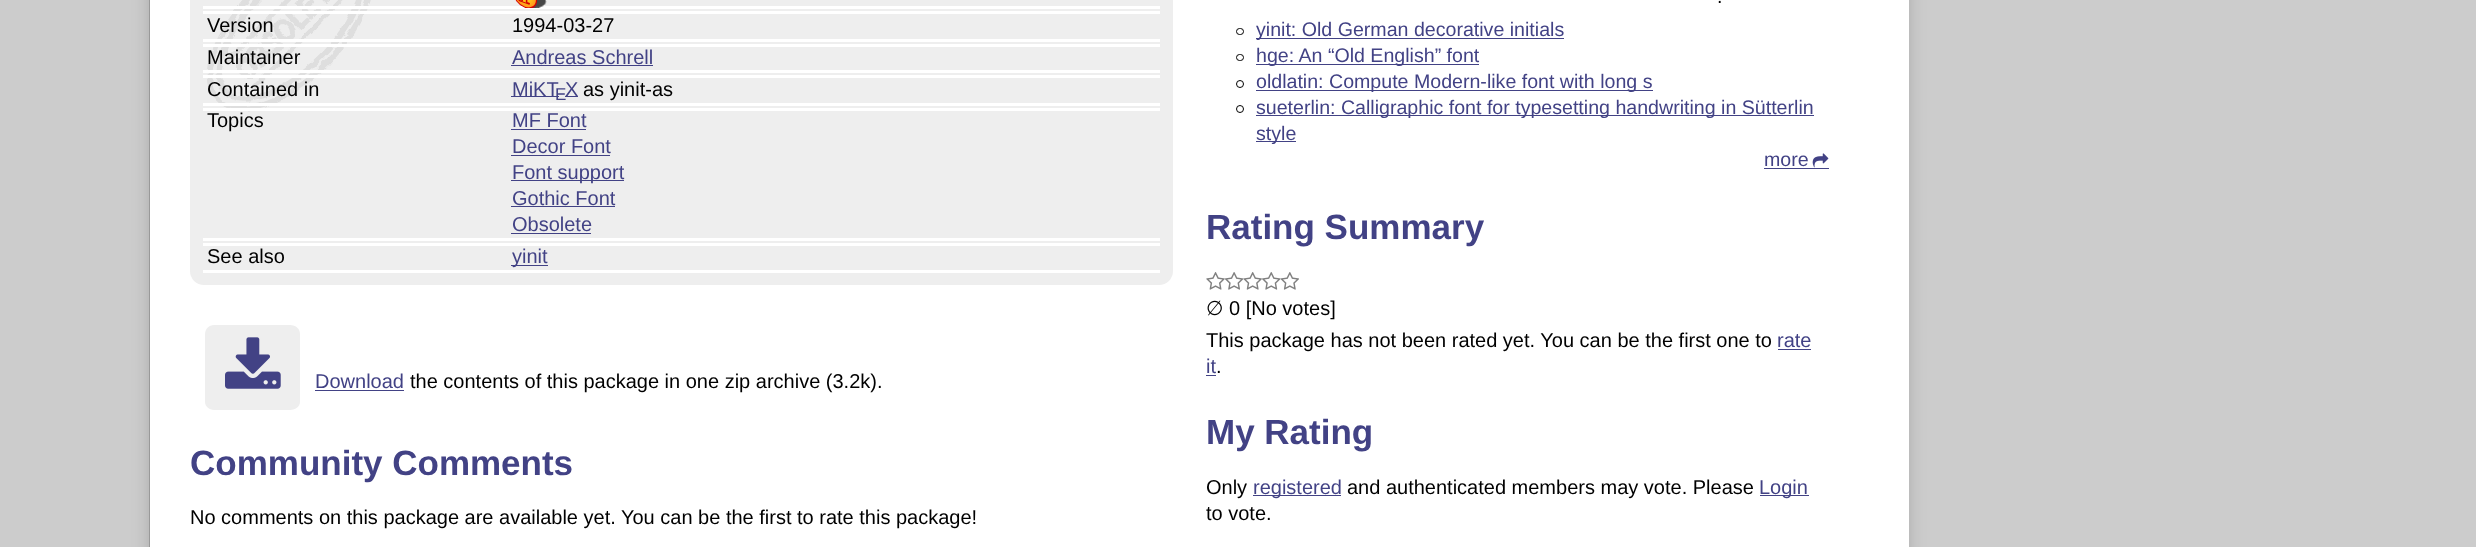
(async () => {
const canvas = document.querySelector("canvas")
canvas.width = 2476
canvas.height = 547
const c = canvas.getContext("2d")
c.miterLimit = 4
c.fontKerning = "normal"
function T(s,x,y){c.fillText(s,x,y)}
function R(x,y,w,h){c.fillRect(x,y,w,h)}
function Q(x,y,w,h,r){c.beginPath();c.roundRect(x,y,w,h,r);c.fill()}
async function I(src,x,y,w,h){const img=new Image();img.src=src;await img.decode();c.drawImage(img,x,y,w,h)}
let path
c.fillStyle="#ccc"
R(0,0,2476,547)
c.fillStyle="#aaa"
c.filter="blur(8px)"
c.beginPath()
c.roundRect(149,-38,1760,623,14)
c.fill()
c.filter="none"
c.fillStyle="#fff"
R(150,0,1759,547)
c.fillStyle="#999"
R(149,0,1,547)
c.fillStyle="#eee"
Q(190,-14,983,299,14)
await I("1.png",207,0,164,112)
c.fillStyle="#fff"
R(203,6,957,3)
await I("2.png",515,0,32,8)
R(203,11,957,3)
R(203,39,957,3)
c.font="20px Liberation Sans"
c.fillStyle="#000"
T("Version",207,32)
T("1994-03-27",512,32)
c.fillStyle="#fff"
R(203,44,957,3)
R(203,70,957,3)
c.fillStyle="#000"
T("Maintainer",207,64)
c.fillStyle="#424285"
T("Andreas Schrell",512,64)
R(511,65,142,1)
c.fillStyle="#fff"
R(203,75,957,3)
R(203,103,957,3)
c.fillStyle="#000"
T("Contained in",207,96)
c.fillStyle="#424285"
T("MiKT",512,96)
R(511,96,48,1)
c.font="17px Liberation Sans"
T("E",555,100)
c.font="20px Liberation Sans"
T("X",565,96)
R(565,96,13,1)
c.fillStyle="#000"
T("as yinit-as",583,96)
c.fillStyle="#fff"
R(203,108,957,3)
R(203,238,957,3)
c.fillStyle="#000"
T("Topics",207,127)
c.fillStyle="#424285"
T("MF Font",512,127)
R(511,129,75,1)
T("Decor Font",512,153)
R(511,155,99,1)
R(511,180,113,1)
T("Font support",512,179)
T("Gothic Font",512,205)
R(511,206,104,1)
T("Obsolete",512,231)
R(511,233,80,1)
c.fillStyle="#fff"
R(203,243,957,3)
R(203,270,957,3)
c.fillStyle="#000"
T("See also",207,263)
c.fillStyle="#424285"
R(511,265,37,1)
T("yinit",512,263)
c.fillStyle="#eee"
path = new Path2D("M214 325h76c6 0 10 4 10 9v68c0 4-4 8-10 8h-76c-5 0-9-4-9-8v-68c0-5 4-9 9-9z")
c.fill(path)
await I("3.png",225,337,56,52)
c.fillStyle="#424285"
T("Download",315,388)
R(315,390,89,1)
c.fillStyle="#000"
T("the contents of this package in one zip archive (3.2k).",410,388)
c.font="bold 35px Liberation Sans"
c.fillStyle="#424285"
T("Community Comments",190,475)
c.font="20px Liberation Sans"
c.fillStyle="#000"
T("No comments on this package are available yet. You can be the first to rate this package!",190,524)
c.font="19.6px Liberation Sans"
T(".",1717,3)
c.beginPath()
c.roundRect(1236.5,28.5,7,6,3)
c.strokeStyle="#000"
c.stroke()
c.fillStyle="#424285"
R(1256,38,308,1)
T("yinit: Old German decorative initials",1256,36)
c.beginPath()
c.roundRect(1236.5,54.5,7,6,3)
c.stroke()
R(1256,64,223,1)
T("hge: An “Old English” font",1256,62)
c.beginPath()
c.arc(1240,84,3.5,0,7)
c.stroke()
R(1256,90,397,1)
T("oldlatin: Compute Modern-like font with long s",1256,88)
c.beginPath()
c.arc(1240,109,3.5,0,7)
c.stroke()
R(1256,115,558,1)
T("sueterlin: Calligraphic font for typesetting handwriting in Sütterlin",1256,114)
R(1256,141,40,1)
T("style",1256,140)
T("more",1764,166)
R(1764,168,65,1)
await I("4.png",1812,153,17,15)
c.font="bold 35px Liberation Sans"
T("Rating Summary",1206,239)
await I("5.png",1206,272,93,18)
c.font="20px DejaVu Sans"
c.fillStyle="#000"
T("∅",1206,315)
c.font="20px Liberation Sans"
T("0 [No votes]",1229,315)
T("This package has not been rated yet. You can be the first one to",1206,347)
c.fillStyle="#424285"
T("rate",1777,347)
R(1778,349,33,1)
T("it",1206,373)
R(1206,375,10,1)
c.fillStyle="#000"
T(".",1216,373)
c.font="bold 35px Liberation Sans"
c.fillStyle="#424285"
T("My Rating",1206,444)
c.font="20px Liberation Sans"
c.fillStyle="#000"
T("Only",1206,494)
c.fillStyle="#424285"
R(1253,495,88,1)
T("registered",1253,494)
c.fillStyle="#000"
T("and authenticated members may vote. Please",1347,494)
c.fillStyle="#424285"
R(1760,495,49,1)
T("Login",1759,494)
c.fillStyle="#000"
T("to vote.",1206,520)
})()
